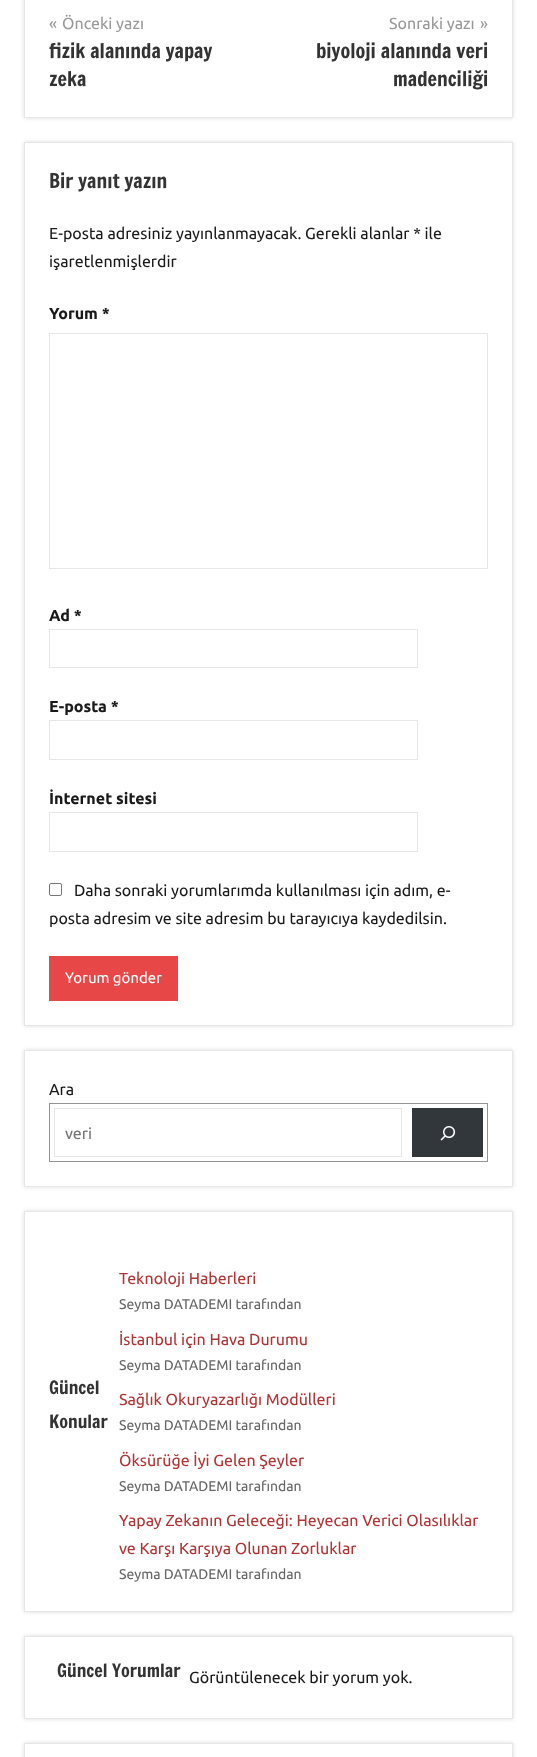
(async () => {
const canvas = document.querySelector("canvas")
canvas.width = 537
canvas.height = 1757
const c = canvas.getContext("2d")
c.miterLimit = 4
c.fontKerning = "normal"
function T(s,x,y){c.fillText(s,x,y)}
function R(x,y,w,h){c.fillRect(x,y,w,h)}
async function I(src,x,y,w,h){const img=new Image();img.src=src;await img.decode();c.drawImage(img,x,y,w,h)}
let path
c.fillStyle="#fff"
R(0,0,537,1757)
c.save()
path = new Path2D("M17 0h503v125h-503zm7-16h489v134h-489z")
c.clip(path,"evenodd")
c.fillStyle="#ddd"
c.filter="blur(2px)"
c.beginPath()
c.rect(24,-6,489,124)
c.fill()
c.filter="none"
c.restore()
c.strokeStyle="#e6e6e6"
c.strokeRect(24.5,-.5,488,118)
c.font="16px Ubuntu"
c.fillStyle="#999"
T("«",49,29)
T("Önceki yazı",62,29)
c.font="20px Francois One"
c.fillStyle="#333"
T("fizik alanında yapay",49,58)
T("zeka",49,86)
c.font="16px Ubuntu"
c.fillStyle="#999"
T("Sonraki yazı",389,29)
T("»",480,29)
c.font="20px Francois One"
c.fillStyle="#333"
T("biyoloji alanında veri",316,58)
T("madenciliği",393,86)
c.save()
path = new Path2D("M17 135h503v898h-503zm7 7h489v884h-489z")
c.clip(path,"evenodd")
c.fillStyle="#ddd"
c.filter="blur(2px)"
c.beginPath()
c.rect(24,142,489,884)
c.fill()
c.filter="none"
c.restore()
c.strokeRect(24.5,142.5,488,883)
T("Bir yanıt yazın",49,188)
c.font="16px Ubuntu"
c.fillStyle="#1a1a1a"
T("E-posta adresiniz yayınlanmayacak. Gerekli alanlar * ile",49,239)
T("işaretlenmişlerdir",49,267)
c.font="bold 16px Ubuntu"
T("Yorum *",49,319)
c.strokeRect(49.5,333.5,438,235)
T("Ad *",49,621)
c.strokeRect(49.5,629.5,368,38)
T("E-posta *",49,712)
c.strokeRect(49.5,720.5,368,39)
T("İnternet sitesi",49,804)
c.strokeRect(49.5,812.5,368,39)
c.beginPath()
c.roundRect(49.5,883.5,12,12,1.5)
c.strokeStyle="#767676"
c.stroke()
c.font="16px Ubuntu"
T("Daha sonraki yorumlarımda kullanılması için adım, e-",74,896)
T("posta adresim ve site adresim bu tarayıcıya kaydedilsin.",49,924)
c.fillStyle="#e84747"
R(49,956,129,45)
c.font="15px Ubuntu"
c.fillStyle="#fff"
T("Yorum gönder",65,983)
c.save()
path = new Path2D("M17 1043h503v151h-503zm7 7h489v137h-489z")
c.clip(path,"evenodd")
c.fillStyle="#ddd"
c.filter="blur(2px)"
c.beginPath()
c.rect(24,1050,489,137)
c.fill()
c.filter="none"
c.restore()
c.strokeStyle="#e6e6e6"
c.strokeRect(24.5,1050.5,488,136)
c.font="16px Ubuntu"
c.fillStyle="#1a1a1a"
T("Ara",49,1095)
c.strokeStyle="#949494"
c.strokeRect(49.5,1103.5,438,58)
c.strokeStyle="#e6e6e6"
c.strokeRect(54.5,1108.5,347,48)
c.fillStyle="#757575"
T("veri",65,1139)
c.fillStyle="#32373c"
R(412,1108,71,49)
await I("1.png",440,1126,16,15)
c.save()
path = new Path2D("M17 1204h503v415h-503zm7 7h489v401h-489z")
c.clip(path,"evenodd")
c.fillStyle="#ddd"
c.filter="blur(2px)"
c.beginPath()
c.rect(24,1211,489,401)
c.fill()
c.filter="none"
c.restore()
c.strokeRect(24.5,1211.5,488,400)
c.font="18px Francois One"
c.fillStyle="#333"
T("Güncel",49,1394)
T("Konular",49,1428)
c.font="16px Ubuntu"
c.fillStyle="#ae3535"
T("Teknoloji Haberleri",119,1284)
c.font="14px Ubuntu"
c.fillStyle="#666"
T("Seyma DATADEMI tarafından",119,1309)
c.font="16px Ubuntu"
c.fillStyle="#ae3535"
T("İstanbul için Hava Durumu",119,1345)
c.font="14px Ubuntu"
c.fillStyle="#666"
T("Seyma DATADEMI tarafından",119,1370)
c.font="16px Ubuntu"
c.fillStyle="#ae3535"
T("Sağlık Okuryazarlığı Modülleri",119,1405)
c.font="14px Ubuntu"
c.fillStyle="#666"
T("Seyma DATADEMI tarafından",119,1430)
c.font="16px Ubuntu"
c.fillStyle="#ae3535"
T("Öksürüğe İyi Gelen Şeyler",119,1466)
c.font="14px Ubuntu"
c.fillStyle="#666"
T("Seyma DATADEMI tarafından",119,1491)
c.font="16px Ubuntu"
c.fillStyle="#ae3535"
T("Yapay Zekanın Geleceği: Heyecan Verici Olasılıklar",119,1526)
T("ve Karşı Karşıya Olunan Zorluklar",119,1554)
c.font="14px Ubuntu"
c.fillStyle="#666"
T("Seyma DATADEMI tarafından",119,1579)
c.save()
path = new Path2D("M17 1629h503v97h-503zm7 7h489v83h-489z")
c.clip(path,"evenodd")
c.fillStyle="#ddd"
c.filter="blur(2px)"
c.beginPath()
c.rect(24,1636,489,83)
c.fill()
c.filter="none"
c.restore()
c.strokeRect(24.5,1636.5,488,82)
c.font="18px Francois One"
c.fillStyle="#333"
T("Güncel Yorumlar",57,1677)
c.font="16px Ubuntu"
c.fillStyle="#1a1a1a"
T("Görüntülenecek bir yorum yok.",189,1683)
c.save()
path = new Path2D("M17 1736h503v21h-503zm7 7h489v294h-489z")
c.clip(path,"evenodd")
c.fillStyle="#ddd"
c.filter="blur(2px)"
c.beginPath()
c.rect(24,1743,489,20)
c.fill()
c.filter="none"
c.restore()
c.strokeRect(24.5,1743.5,488,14)
})()
